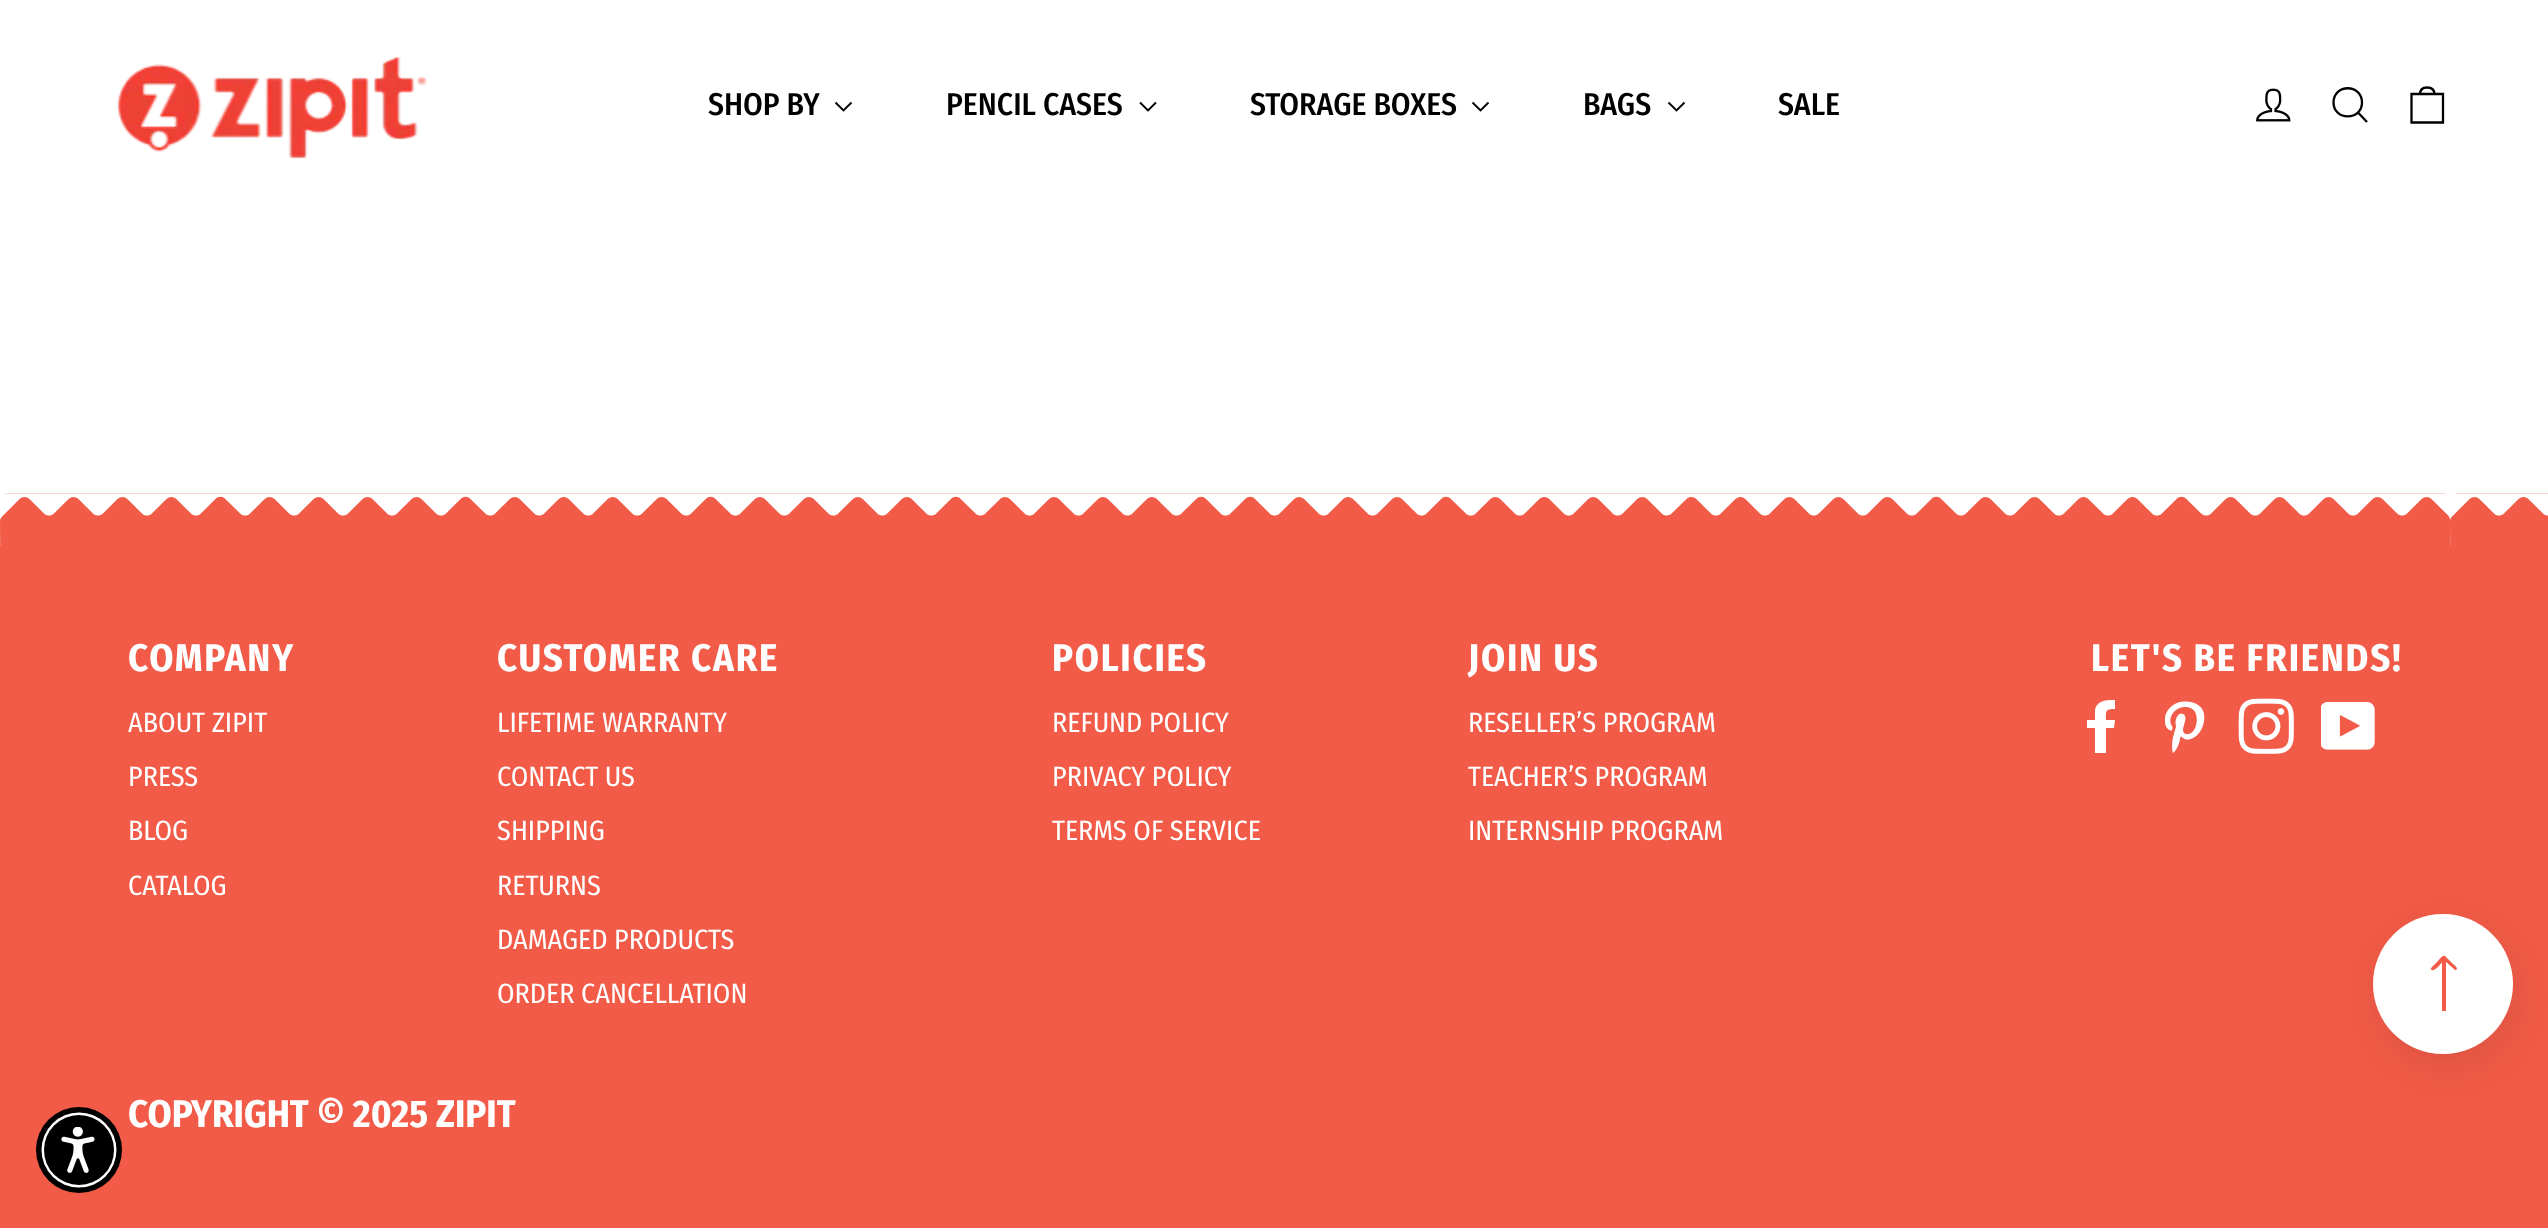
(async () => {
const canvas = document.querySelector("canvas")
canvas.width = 2548
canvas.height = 1228
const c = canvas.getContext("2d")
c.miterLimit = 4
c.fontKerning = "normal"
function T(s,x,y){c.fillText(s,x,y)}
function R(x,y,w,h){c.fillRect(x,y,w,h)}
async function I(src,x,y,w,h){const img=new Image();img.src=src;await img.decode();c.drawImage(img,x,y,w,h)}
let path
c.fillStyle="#fff"
R(0,0,2548,1228)
c.fillStyle="#f15b47"
R(0,546,2548,682)
c.fillStyle="#000"
c.beginPath()
c.arc(79,1150,43,0,7)
c.fill()
c.fillStyle="#fff"
c.beginPath()
c.arc(79,1150,37.5,0,7)
c.fill()
c.fillStyle="#000"
c.beginPath()
c.arc(79,1150,35,0,7)
c.fill()
await I("1.png",61,1127,34,46)
await I("2.png",117,56,310,103)
c.font="500 31.5px Fira Sans Condensed"
T("SHOP BY",708,115)
path = new Path2D("M835.5 102.5l8 8l8-8")
c.strokeStyle="#000"
c.lineWidth=1.9
c.stroke(path)
T("PENCIL CASES",946,115)
path = new Path2D("M1140 102.5l8 8l8-8")
c.stroke(path)
T("STORAGE BOXES",1250,115)
path = new Path2D("M1472.5 102.5l8 8l8-8")
c.stroke(path)
T("BAGS",1583,115)
path = new Path2D("M1668.5 102.5l8 8l8-8")
c.stroke(path)
T("SALE",1778,115)
await I("3.png",2256,88,35,34)
path = new Path2D("M2362 102.5c0 18.5-28.5 18.5-28.5 0c0-19 28.5-19 28.5 0zm5 19.5l-9-9.5")
c.lineWidth=2.3
c.stroke(path)
path = new Path2D("M2411.5 94h31.5v28.5h-31.5zm8.5 .5c0-5.5 3-7 7-7c4.5 0 7.5 1.5 7.5 7")
c.stroke(path)
await I("4.png",0,493,2548,53)
c.letterSpacing="1.75px"
c.font="bold 38.5px Fira Sans Condensed"
c.fillStyle="#fff"
T("COMPANY",128,671)
c.letterSpacing="0px"
c.font="28px Fira Sans Condensed"
T("ABOUT ZIPIT",128,732)
T("PRESS",128,786)
T("BLOG",128,840)
T("CATALOG",128,895)
c.letterSpacing="1.75px"
c.font="bold 38.5px Fira Sans Condensed"
T("CUSTOMER CARE",497,671)
c.letterSpacing="0px"
c.font="28px Fira Sans Condensed"
T("LIFETIME WARRANTY",497,732)
T("CONTACT US",497,786)
T("SHIPPING",497,840)
T("RETURNS",497,895)
T("DAMAGED PRODUCTS",497,949)
T("ORDER CANCELLATION",497,1003)
c.letterSpacing="1.75px"
c.font="bold 38.5px Fira Sans Condensed"
T("POLICIES",1052,671)
c.letterSpacing="0px"
c.font="28px Fira Sans Condensed"
T("REFUND POLICY",1052,732)
T("PRIVACY POLICY",1052,786)
T("TERMS OF SERVICE",1052,840)
c.letterSpacing="1.75px"
c.font="bold 38.5px Fira Sans Condensed"
T("JOIN US",1468,671)
c.letterSpacing="0px"
c.font="28px Fira Sans Condensed"
T("RESELLER’S PROGRAM",1468,732)
T("TEACHER’S PROGRAM",1468,786)
T("INTERNSHIP PROGRAM",1468,840)
c.letterSpacing="1.75px"
c.font="bold 38.5px Fira Sans Condensed"
T("LET'S BE FRIENDS!",2091,671)
path = new Path2D("M2106 753v-25h8l1-8h-9c0-9-1-11 9-11v-9c-8 0-18 0-20 10v10h-8v8h8v25z")
c.fill(path)
await I("5.png",2164,701,41,52)
await I("6.png",2238,698,56,56)
await I("7.png",2321,702,54,48)
c.letterSpacing="0px"
T("COPYRIGHT © 2025 ZIPIT",128,1127)
c.fillStyle="#0c0c0d0d"
c.filter="blur(3.5px)"
c.beginPath()
c.roundRect(2380,928,126,126,63)
c.fill()
c.filter="none"
c.fillStyle="#0c0c0d1a"
c.filter="blur(28px)"
c.beginPath()
c.roundRect(2385,935,126,126,63)
c.fill()
c.filter="none"
c.fillStyle="#fff"
c.beginPath()
c.arc(2443,984,70,0,7)
c.fill()
c.fillStyle="#f15b47"
path = new Path2D("M2445 956c-2-2-7 5-8 6c0 1-9 7-5 8c2 1 4-2 6-3l6-7l11 10h1c3-2-2-5-3-6zm1 55v-53h-4v53z")
c.fill(path)
})()
